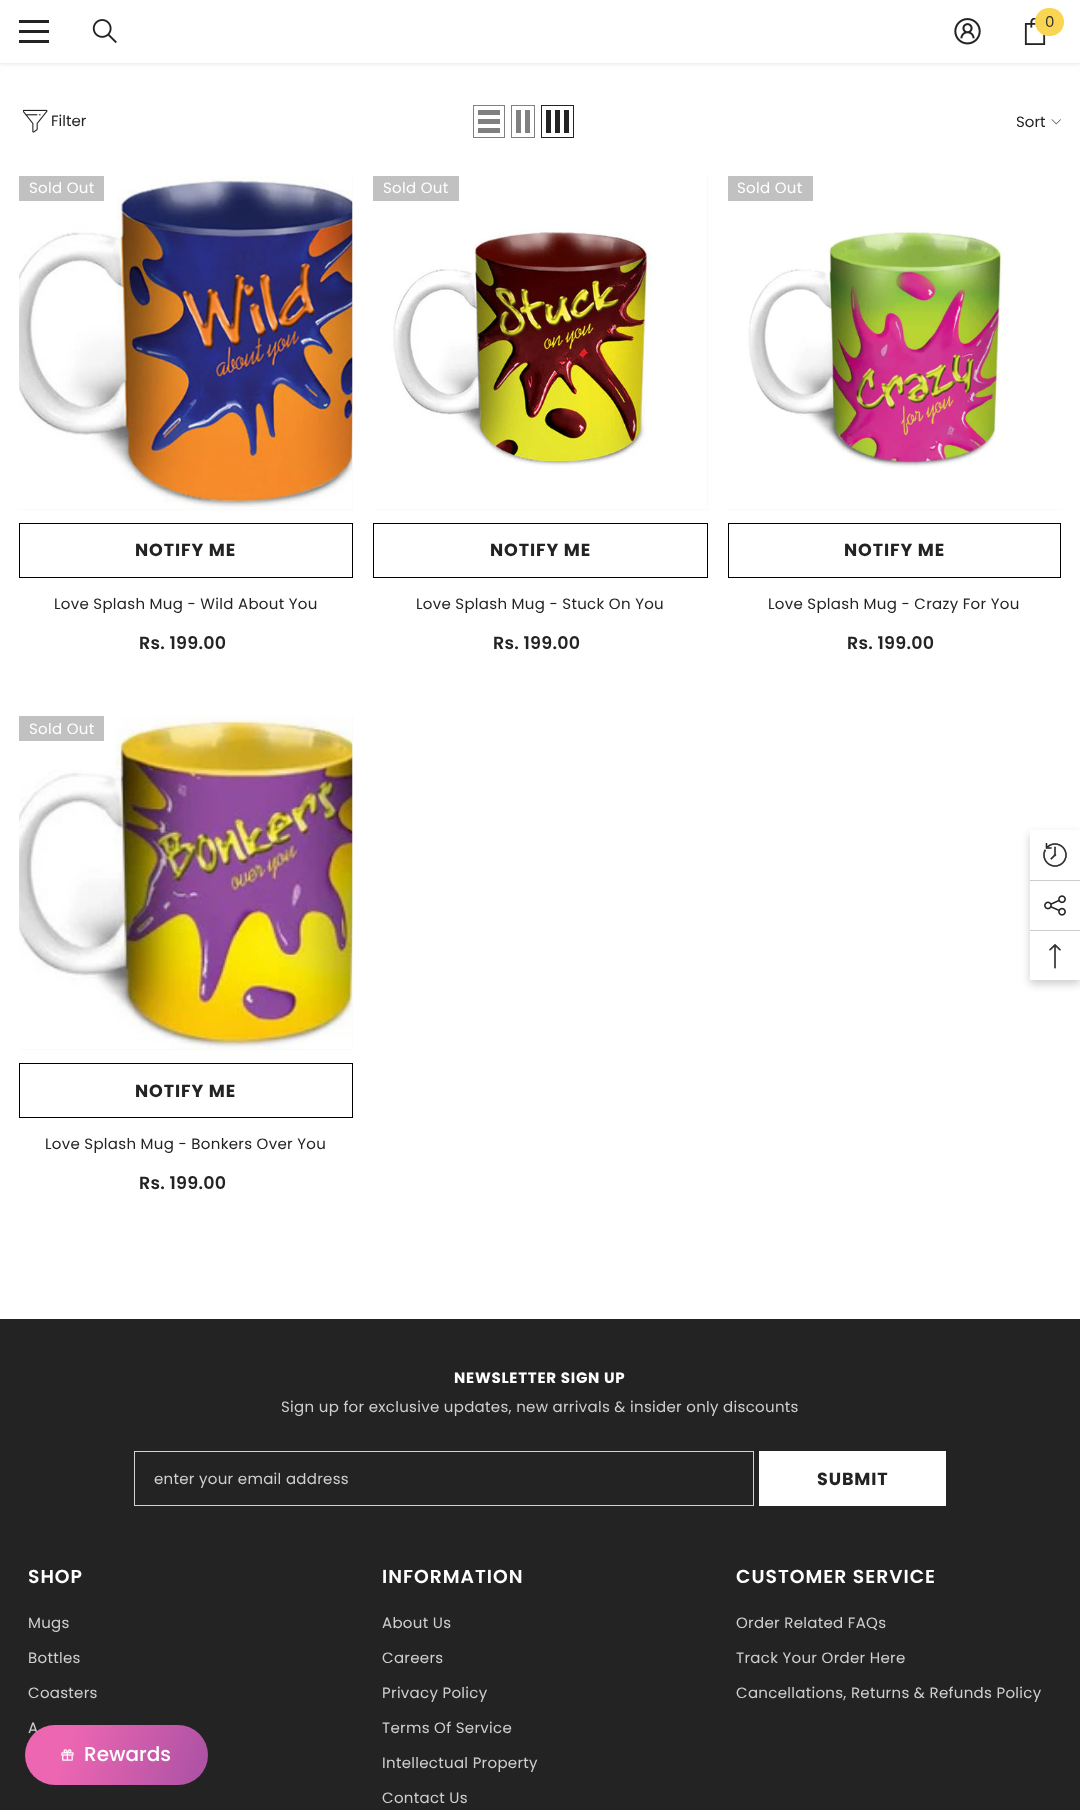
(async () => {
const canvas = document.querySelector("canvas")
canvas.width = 1080
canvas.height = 1810
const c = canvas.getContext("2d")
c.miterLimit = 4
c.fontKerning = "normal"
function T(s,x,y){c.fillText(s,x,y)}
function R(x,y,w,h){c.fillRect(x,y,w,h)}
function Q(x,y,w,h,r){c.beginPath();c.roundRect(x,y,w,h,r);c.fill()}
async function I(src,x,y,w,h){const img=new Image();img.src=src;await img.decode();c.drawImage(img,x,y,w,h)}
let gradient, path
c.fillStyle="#fff"
R(0,0,1080,1810)
c.fillStyle="#0000001a"
c.filter="blur(2px)"
c.beginPath()
c.rect(0,1,1080,63)
c.fill()
c.filter="none"
c.fillStyle="#fff"
R(0,0,1080,63)
c.fillStyle="#232323"
R(19,30,30,3)
R(19,20,30,3)
R(19,40,30,3)
await I("1.png",92,19,25,25)
await I("2.png",954,18,27,27)
await I("3.png",1024,18,22,27)
c.fillStyle="#f9d551"
Q(1035,8,29,28,14)
c.letterSpacing="0.3px"
c.font="15px Poppins"
c.fillStyle="#323232"
T("0",1045,27)
await I("4.png",23,109,25,24)
c.letterSpacing="0px"
c.fillStyle="#232323"
T("Filter",51,126)
c.strokeStyle="#808080"
c.strokeRect(473.5,105.5,31,32)
c.fillStyle="#808080"
R(478,128,22,5)
R(478,119,22,5)
R(478,110,22,5)
c.strokeRect(511.5,105.5,23,32)
R(525,110,5,23)
R(516,110,5,23)
c.strokeStyle="#232323"
c.strokeRect(541.5,105.5,32,32)
c.fillStyle="#232323"
R(564,110,5,23)
R(555,110,5,23)
R(546,110,5,23)
T("Sort",1016,127)
await I("5.png",1051,119,10,6)
c.fillStyle="#fafafa"
R(19,176,334,334)
await I("6.png",19,176,334,333)
c.fillStyle="#c1c1c1"
R(19,176,85,25)
c.letterSpacing="0.3px"
c.fillStyle="#fff"
T("Sold Out",29,193)
c.strokeStyle="#000"
c.strokeRect(19.5,523.5,333,54)
c.letterSpacing="0.9px"
c.font="bold 17.5px Poppins"
c.fillStyle="#232323"
T("NOTIFY ME",135,556)
c.letterSpacing="0.3px"
c.font="15px Poppins"
T("Love Splash Mug - Wild About You",54,609)
c.letterSpacing="0.25px"
c.font="600 17.5px Poppins"
T("Rs. 199.00",139,649)
c.fillStyle="#fafafa"
R(373,176,335,334)
await I("7.png",373,176,334,333)
c.fillStyle="#c1c1c1"
R(373,176,86,25)
c.letterSpacing="0.3px"
c.font="15px Poppins"
c.fillStyle="#fff"
T("Sold Out",383,193)
c.strokeRect(373.5,523.5,334,54)
c.letterSpacing="0.9px"
c.font="bold 17.5px Poppins"
c.fillStyle="#232323"
T("NOTIFY ME",490,556)
c.letterSpacing="0.3px"
c.font="15px Poppins"
T("Love Splash Mug - Stuck On You",416,609)
c.letterSpacing="0.25px"
c.font="600 17.5px Poppins"
T("Rs. 199.00",493,649)
c.fillStyle="#fafafa"
R(728,509,333,1)
await I("8.png",728,176,333,333)
c.fillStyle="#c1c1c1"
R(728,176,85,25)
c.letterSpacing="0.3px"
c.font="15px Poppins"
c.fillStyle="#fff"
T("Sold Out",737,193)
c.strokeRect(728.5,523.5,332,54)
c.letterSpacing="0.9px"
c.font="bold 17.5px Poppins"
c.fillStyle="#232323"
T("NOTIFY ME",844,556)
c.letterSpacing="0.3px"
c.font="15px Poppins"
T("Love Splash Mug - Crazy For You",768,609)
c.letterSpacing="0.25px"
c.font="600 17.5px Poppins"
T("Rs. 199.00",847,649)
c.fillStyle="#fafafa"
R(19,716,334,334)
await I("9.png",19,716,334,333)
c.fillStyle="#c1c1c1"
R(19,716,85,25)
c.letterSpacing="0.3px"
c.font="15px Poppins"
c.fillStyle="#fff"
T("Sold Out",29,734)
c.strokeRect(19.5,1063.5,333,54)
c.letterSpacing="0.9px"
c.font="bold 17.5px Poppins"
c.fillStyle="#232323"
T("NOTIFY ME",135,1097)
c.letterSpacing="0.3px"
c.font="15px Poppins"
T("Love Splash Mug - Bonkers Over You",45,1149)
c.letterSpacing="0.25px"
c.font="600 17.5px Poppins"
T("Rs. 199.00",139,1189)
R(0,1319,1080,491)
c.letterSpacing="0.75px"
c.font="bold 15px Poppins"
c.fillStyle="#fff"
T("NEWSLETTER SIGN UP",454,1383)
c.letterSpacing="0.3px"
c.font="15px Poppins"
c.fillStyle="#cfcfcf"
T("Sign up for exclusive updates, new arrivals & insider only discounts",281,1412)
c.strokeStyle="#d3d3d3"
c.strokeRect(134.5,1451.5,619,54)
T("enter your email address",154,1484)
c.fillStyle="#fff"
R(759,1451,187,55)
c.letterSpacing="0.9px"
c.font="bold 17.5px Poppins"
c.fillStyle="#232323"
T("SUBMIT",817,1485)
c.letterSpacing="1px"
c.font="600 18.75px Poppins"
c.fillStyle="#fff"
T("SHOP",28,1583)
c.letterSpacing="0.3px"
c.font="15px Poppins"
c.fillStyle="#cfcfcf"
T("Mugs",28,1628)
T("Bottles",28,1663)
T("Coasters",28,1698)
T("A",28,1733)
c.letterSpacing="1px"
c.font="600 18.75px Poppins"
c.fillStyle="#fff"
T("INFORMATION",382,1583)
c.letterSpacing="0.3px"
c.font="15px Poppins"
c.fillStyle="#cfcfcf"
T("About Us",382,1628)
T("Careers",382,1663)
T("Privacy Policy",382,1698)
T("Terms Of Service",382,1733)
T("Intellectual Property",382,1768)
T("Contact Us",382,1803)
c.letterSpacing="1px"
c.font="600 18.75px Poppins"
c.fillStyle="#fff"
T("CUSTOMER SERVICE",736,1583)
c.letterSpacing="0.3px"
c.font="15px Poppins"
c.fillStyle="#cfcfcf"
T("Order Related FAQs",736,1628)
T("Track Your Order Here",736,1663)
T("Cancellations, Returns & Refunds Policy",736,1698)
c.save()
path = new Path2D("M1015 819h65v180h-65zm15 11h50v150h-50z")
c.clip(path,"evenodd")
c.fillStyle="#00000033"
c.filter="blur(4.5px)"
c.beginPath()
c.rect(1030,834,50,150)
c.fill()
c.filter="none"
c.restore()
await I("10.png",1043,843,24,24)
c.fillStyle="#ccc"
R(1030,880,50,1)
await I("11.png",1044,895,22,21)
R(1030,930,50,1)
await I("12.png",1049,944,12,25)
gradient = c.createLinearGradient(26,1723,279,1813)
gradient.addColorStop(.17,"#ed66b2")
gradient.addColorStop(1,"#86469c")
c.fillStyle = gradient
Q(25,1725,183,60,30)
await I("13.png",61,1749,13,12)
c.letterSpacing="0px"
c.font="500 20px Poppins"
c.fillStyle="#fff"
T("Rewards",84,1761)
})()
